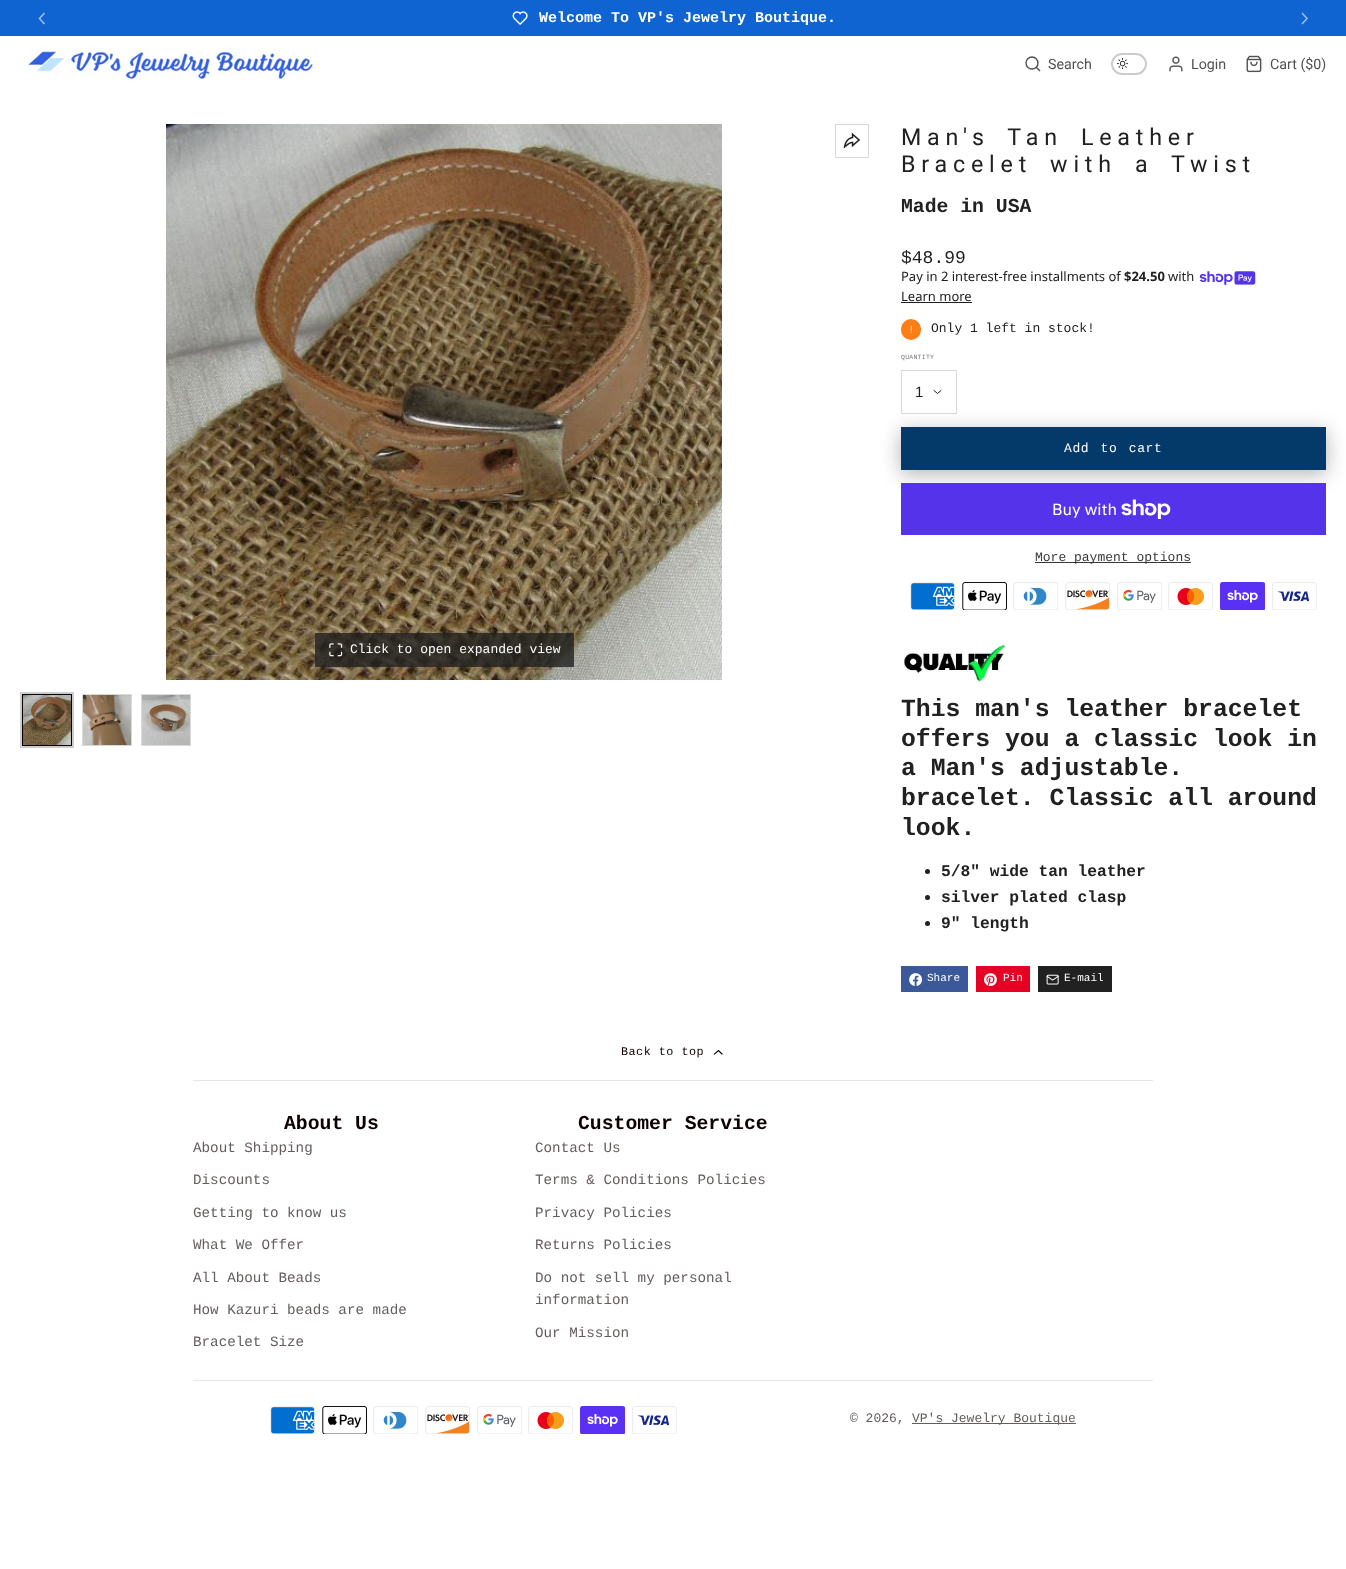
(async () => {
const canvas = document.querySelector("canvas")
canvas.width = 1346
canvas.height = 1569
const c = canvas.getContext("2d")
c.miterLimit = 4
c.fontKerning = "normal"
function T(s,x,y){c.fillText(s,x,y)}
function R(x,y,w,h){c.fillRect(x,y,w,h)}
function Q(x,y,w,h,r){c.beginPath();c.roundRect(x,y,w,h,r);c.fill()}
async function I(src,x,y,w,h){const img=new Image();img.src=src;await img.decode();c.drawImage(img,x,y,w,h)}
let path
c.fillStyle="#fff"
R(0,0,1346,1569)
c.fillStyle="#0f64d1"
R(0,0,1346,36)
path = new Path2D("M44 23.5l-4.5-5l4.5-5")
c.strokeStyle="#9fc1ed"
c.lineWidth=1.5
c.lineCap="square"
c.stroke(path)
await I("1.png",512,11,16,14)
c.font="bold 15px Liberation Mono"
c.fillStyle="#fff"
T("Welcome To VP's Jewelry Boutique.",539,22)
path = new Path2D("M1302.5 23.5l4.5-5l-4.5-5")
c.stroke(path)
await I("2.png",28,46,288,36)
c.beginPath()
c.arc(1032,63,6,0,7)
c.strokeStyle="#505050"
c.lineWidth=1.4
c.stroke()
path = new Path2D("M1039.5 70.5l-3-3")
c.stroke(path)
c.font="14.25px Roboto"
c.fillStyle="#505050"
T("Search",1048,69)
c.beginPath()
c.roundRect(1112,54,34,20,10)
c.strokeStyle="#ccc"
c.lineWidth=2
c.stroke()
await I("3.png",1117,58,11,11)
await I("4.png",1169,56,14,16)
T("Login",1191,69)
await I("5.png",1246,55,16,18)
T("Cart ($0)",1270,69)
await I("6.png",166,124,556,556)
c.strokeStyle="#d9d9d9"
c.lineWidth=1
c.strokeRect(835.5,124.5,33,33)
await I("7.png",843,132,18,16)
c.fillStyle="#212121cc"
R(315,633,259,34)
await I("8.png",329,643,14,14)
c.font="13px Liberation Mono"
c.fillStyle="#fff"
T("Click to open expanded view",350,653)
c.strokeStyle="#cecccc"
c.lineWidth=2
c.strokeRect(21,693,52,54)
c.strokeStyle="#090000"
c.lineWidth=1
c.strokeRect(22.5,694.5,49,51)
await I("9.png",23,695,48,50)
c.strokeStyle="#d9d9d9"
c.strokeRect(82.5,694.5,49,51)
await I("10.png",83,695,48,50)
c.strokeRect(141.5,694.5,49,51)
await I("11.png",142,695,48,50)
c.letterSpacing="5.8px"
c.wordSpacing="6.5px"
c.font="23.25px Roboto"
c.fillStyle="#212121"
T("Man's Tan Leather",901,145)
T("Bracelet with a Twist",901,172)
c.letterSpacing="0px"
c.wordSpacing="0px"
c.font="bold 19.75px Liberation Mono"
T("Made in USA",901,212)
c.font="18px Liberation Mono"
T("$48.99",901,263)
c.font="13px Noto Sans"
T("Pay in 2 interest-free installments of",901,281)
c.font="bold 13px Noto Sans"
T("$24.50",1124,281)
c.font="13px Noto Sans"
T("with",1168,281)
await I("12.png",1199,271,57,14)
T("Learn more",901,301)
R(901,302,71,1)
c.fillStyle="#fd7e14"
Q(901,319,20,21,10)
await I("13.png",910,325,2,8)
c.font="13px Liberation Mono"
c.fillStyle="#212121"
T("Only 1 left in stock!",931,332)
c.letterSpacing="0.25px"
c.font="6.5px Liberation Mono"
c.fillStyle="#7a7a7a"
T("QUANTITY",901,359)
c.strokeRect(901.5,370.5,55,43)
c.letterSpacing="0px"
c.font="15px Liberation Sans"
c.fillStyle="#212121"
T("1",915,397)
path = new Path2D("M934 390.5l3.5 3l3.5-3")
c.strokeStyle="#212121"
c.stroke(path)
c.fillStyle="#0000004d"
c.filter="blur(10px)"
c.beginPath()
c.rect(901,431,425,43)
c.fill()
c.filter="none"
c.fillStyle="#043a6a"
R(901,427,425,43)
c.letterSpacing="0.6px"
c.wordSpacing="3px"
c.font="13px Liberation Mono"
c.fillStyle="#fff"
T("Add to cart",1064,452)
c.fillStyle="#5433eb"
R(901,483,425,52)
c.letterSpacing="0px"
c.wordSpacing="0px"
c.font="16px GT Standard"
c.fillStyle="#fff"
T("Buy with",1052,515)
await I("14.png",1121,499,50,20)
c.fillStyle="#383838"
R(1035,562,156,1)
c.font="13px Liberation Mono"
T("More payment options",1035,561)
await I("15.png",910,582,45,28)
await I("16.png",962,582,45,28)
await I("17.png",1013,582,45,28)
await I("18.png",1065,582,45,28)
await I("19.png",1117,582,45,28)
await I("20.png",1168,582,45,28)
await I("21.png",1220,582,45,28)
await I("22.png",1272,582,45,28)
await I("23.png",904,643,103,39)
c.font="bold 24.75px Liberation Mono"
c.fillStyle="#212121"
T("This man's leather bracelet",901,716)
T("offers you a classic look in",901,746)
T("a Man's adjustable.",901,775)
T("bracelet. Classic all around",901,805)
T("look.",901,835)
c.beginPath()
c.arc(927.5,871.5,2.5,0,7)
c.fill()
c.font="bold 16.25px Liberation Mono"
T("5/8\" wide tan leather",941,876)
c.beginPath()
c.arc(927.5,897.5,2.5,0,7)
c.fill()
T("silver plated clasp",941,902)
c.beginPath()
c.arc(927.5,923.5,2.5,0,7)
c.fill()
T("9\" length",941,928)
c.fillStyle="#3b5998"
R(901,966,67,26)
await I("24.png",909,973,13,13)
c.font="11px Liberation Mono"
c.fillStyle="#fff"
T("Share",927,981)
c.fillStyle="#e60023"
R(976,966,54,26)
await I("25.png",984,973,13,13)
c.fillStyle="#fff"
T("Pin",1003,981)
c.fillStyle="#212121"
R(1038,966,74,26)
await I("26.png",1046,974,13,11)
c.fillStyle="#fff"
T("E-mail",1064,981)
c.letterSpacing="0.5px"
c.font="11.75px Liberation Mono"
c.fillStyle="#0e0000"
T("Back to top",621,1055)
path = new Path2D("M722 1054l-3.5-3.5l-4 3.5")
c.strokeStyle="#0e0000"
c.lineWidth=1.2
c.stroke(path)
c.fillStyle="#e7e6e6"
R(193,1080,960,1)
c.letterSpacing="0px"
c.font="bold 19.75px Liberation Mono"
c.fillStyle="#0e0000"
T("About Us",284,1129)
c.font="14.25px Liberation Mono"
c.fillStyle="#655c5c"
T("About Shipping",193,1152)
T("Discounts",193,1184)
T("Getting to know us",193,1217)
T("What We Offer",193,1249)
T("All About Beads",193,1282)
T("How Kazuri beads are made",193,1314)
T("Bracelet Size",193,1346)
c.font="bold 19.75px Liberation Mono"
c.fillStyle="#0e0000"
T("Customer Service",578,1129)
c.font="14.25px Liberation Mono"
c.fillStyle="#655c5c"
T("Contact Us",535,1152)
T("Terms & Conditions Policies",535,1184)
T("Privacy Policies",535,1217)
T("Returns Policies",535,1249)
T("Do not sell my personal",535,1282)
T("information",535,1304)
T("Our Mission",535,1337)
c.fillStyle="#e7e6e6"
R(193,1380,960,1)
await I("15.png",270,1406,45,28)
await I("16.png",322,1406,45,28)
await I("17.png",373,1406,45,28)
await I("18.png",425,1406,45,28)
await I("19.png",477,1406,45,28)
await I("20.png",528,1406,45,28)
await I("21.png",580,1406,45,28)
await I("22.png",632,1406,45,28)
c.font="13px Liberation Mono"
c.fillStyle="#655c5c"
T("© 2026,",850,1422)
R(912,1423,164,1)
T("VP's Jewelry Boutique",912,1422)
})()
